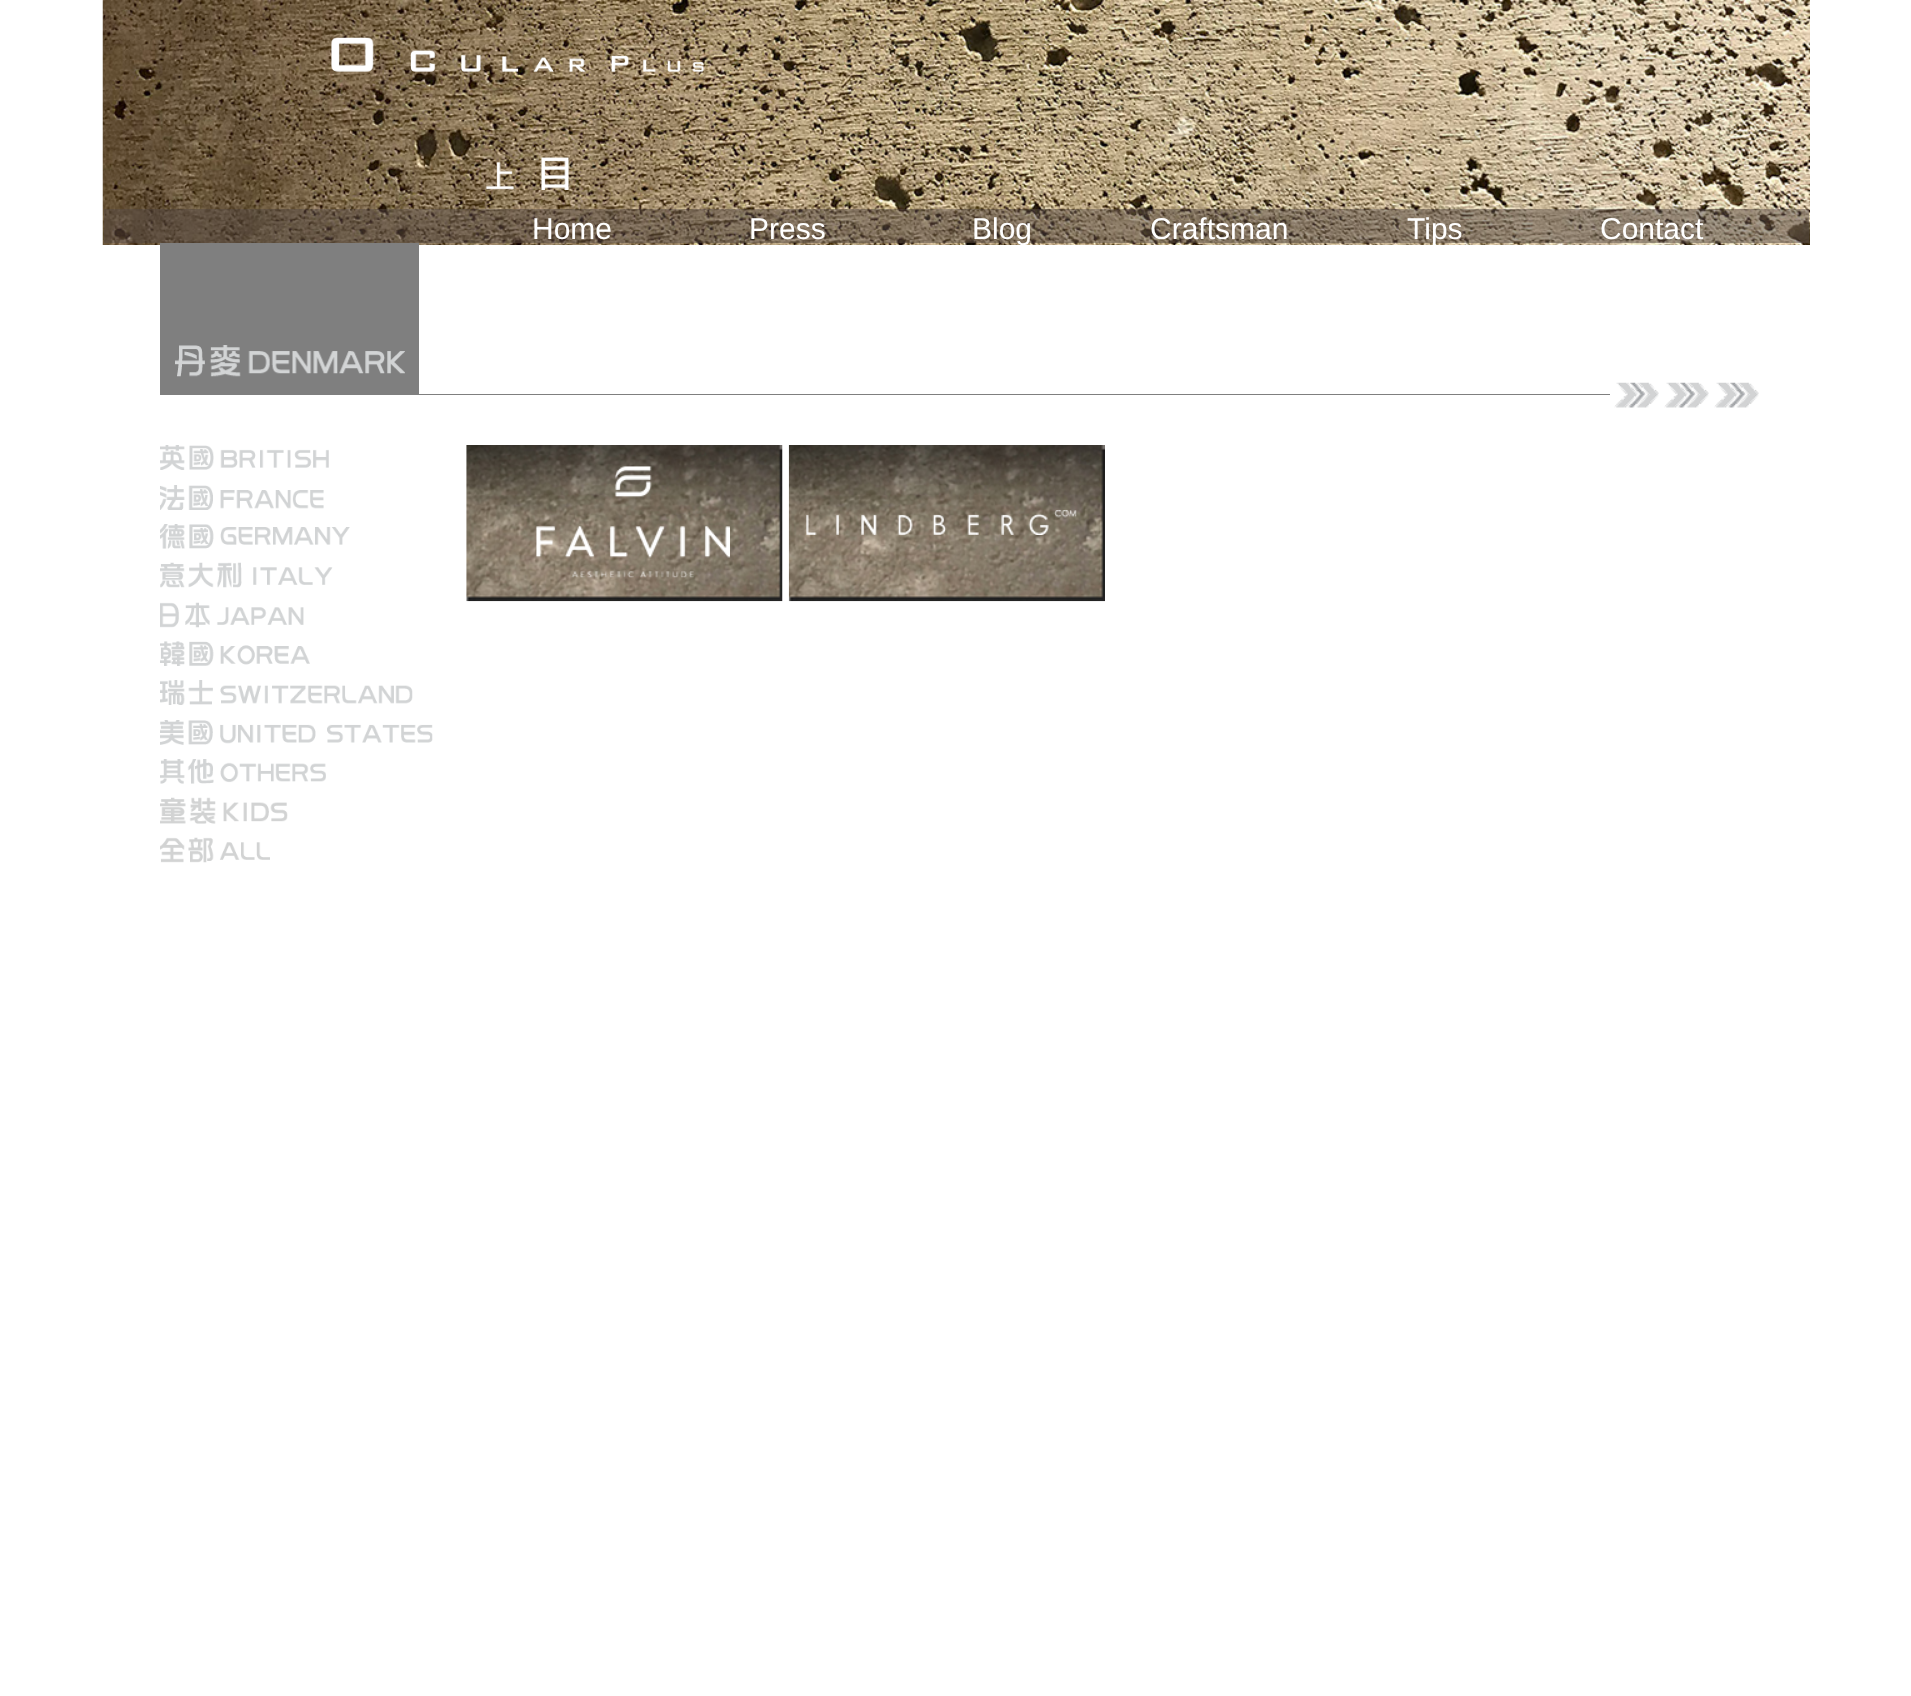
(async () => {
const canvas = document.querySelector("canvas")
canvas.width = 1911
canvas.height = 1696
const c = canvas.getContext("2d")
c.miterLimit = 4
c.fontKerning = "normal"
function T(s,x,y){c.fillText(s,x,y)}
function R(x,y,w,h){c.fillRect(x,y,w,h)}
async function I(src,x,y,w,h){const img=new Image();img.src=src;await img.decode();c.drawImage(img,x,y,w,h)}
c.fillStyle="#fff"
R(0,0,1911,1696)
await I("1.png",102,0,1708,245)
await I("2.png",331,37,373,153)
c.fillStyle="#53474180"
R(104,209,1705,34)
c.font="30px Liberation Sans"
c.fillStyle="#fff"
T("Home",532,239)
T("Press",749,239)
T("Blog",972,239)
T("Craftsman",1150,239)
T("Tips",1407,239)
T("Contact",1600,239)
c.fillStyle="#7f7f7f"
R(160,243,259,151)
await I("3.png",175,345,230,32)
R(160,394,1450,1)
await I("4.png",1614,382,45,26)
await I("4.png",1664,382,45,26)
await I("5.png",1714,382,45,26)
await I("6.png",160,445,169,25)
await I("7.png",160,485,164,25)
await I("8.png",160,524,190,25)
await I("9.png",160,562,173,26)
await I("10.png",466,445,317,157)
await I("11.png",536,466,194,112)
await I("12.png",788,445,317,157)
await I("13.png",806,510,271,25)
await I("14.png",160,602,144,26)
await I("15.png",160,641,150,25)
await I("16.png",160,680,253,25)
await I("17.png",160,720,273,25)
await I("18.png",160,759,166,25)
await I("19.png",160,797,128,27)
await I("20.png",160,837,110,26)
})()
